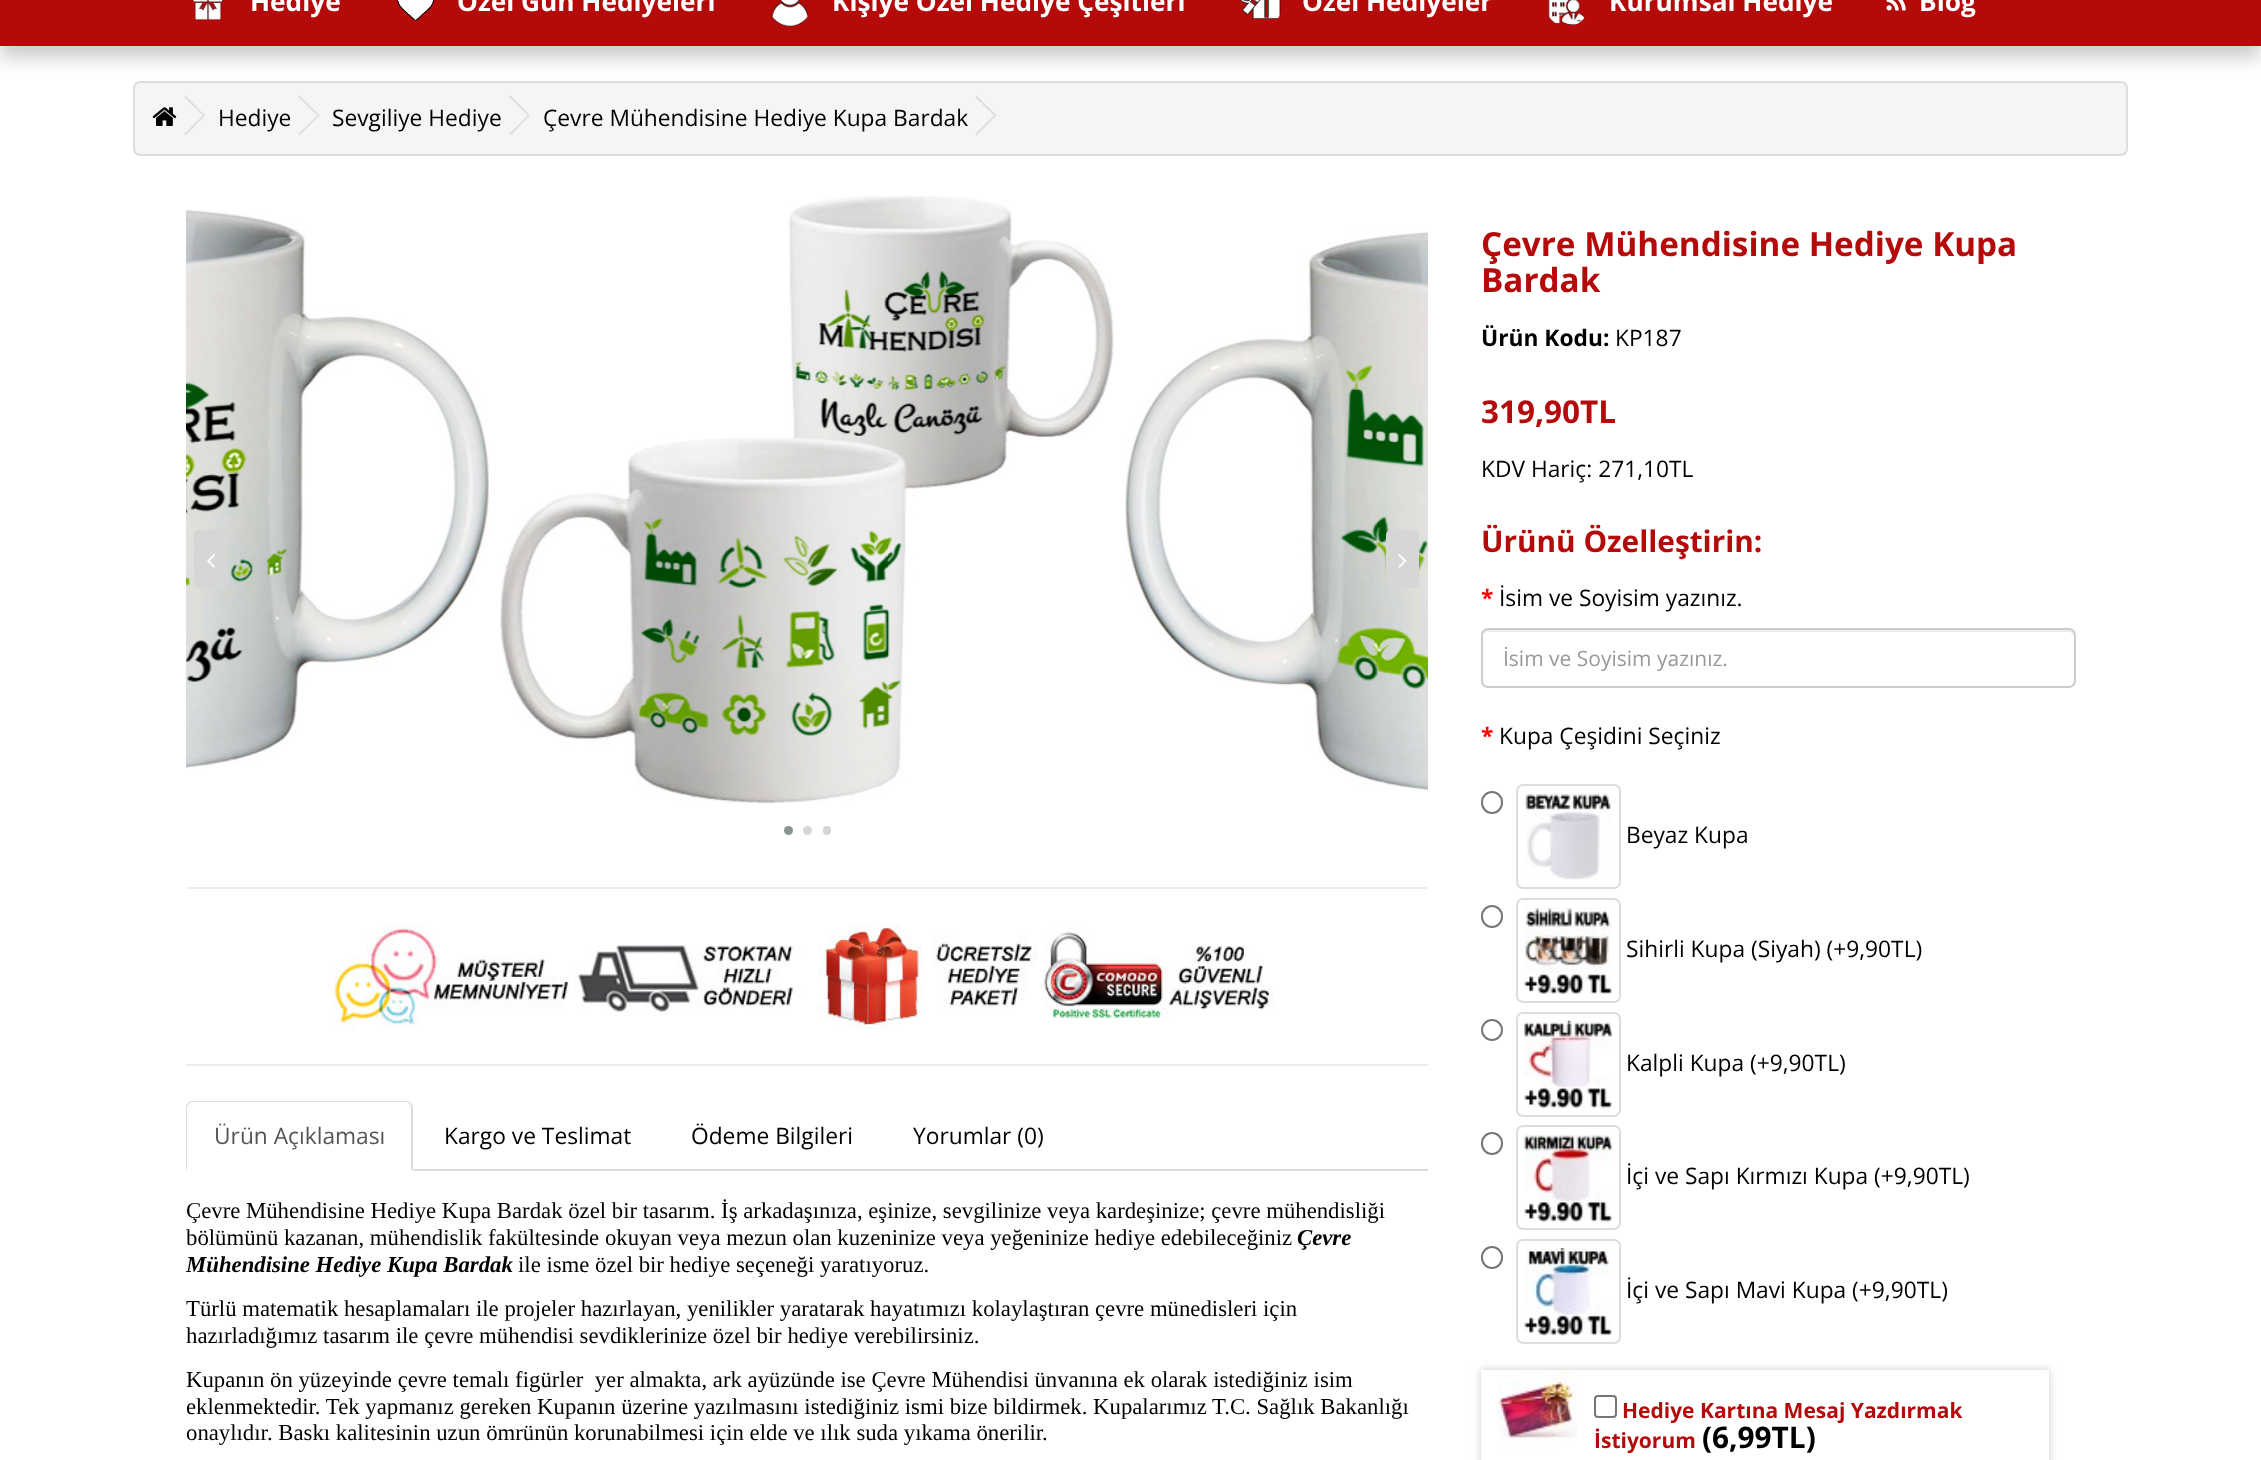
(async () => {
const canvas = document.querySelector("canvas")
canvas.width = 2261
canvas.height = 1460
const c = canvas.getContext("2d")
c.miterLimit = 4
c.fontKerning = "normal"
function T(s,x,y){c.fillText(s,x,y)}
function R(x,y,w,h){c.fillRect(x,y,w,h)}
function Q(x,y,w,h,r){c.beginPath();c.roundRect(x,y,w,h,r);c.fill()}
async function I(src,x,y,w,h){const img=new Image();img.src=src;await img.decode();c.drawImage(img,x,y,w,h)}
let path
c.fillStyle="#fff"
R(0,0,2261,1460)
c.fillStyle="#ccc"
c.filter="blur(9px)"
c.beginPath()
c.rect(0,-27,2261,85)
c.fill()
c.filter="none"
c.fillStyle="#b50a0a"
R(0,0,2261,46)
await I("1.png",192,0,32,21)
c.font="bold 26.25px Open Sans"
c.fillStyle="#fff"
T("Hediye",250,11)
await I("2.png",397,0,37,21)
T("Özel Gün Hediyeleri",457,11)
await I("3.png",771,0,38,27)
T("Kişiye Özel Hediye Çeşitleri",832,11)
await I("4.png",1240,0,41,19)
T("Özel Hediyeler",1302,11)
await I("5.png",1548,0,37,25)
T("Kurumsal Hediye",1609,11)
await I("6.png",1886,0,20,11)
T("Blog",1919,11)
c.fillStyle="#f5f5f5"
c.beginPath()
c.roundRect(134,82,1993,73,6)
c.fill()
c.strokeStyle="#ddd"
c.lineWidth=2
c.stroke()
await I("7.png",152,107,25,19)
c.fillStyle="#ddd"
path = new Path2D("M184 97l1.5-1.5l19.5 20l-1 1z")
c.fill(path)
path = new Path2D("M184 134l20-19.5l1 1l-19.5 20z")
c.fill(path)
c.font="22.75px Open Sans"
c.fillStyle="#000"
T("Hediye",218,126)
c.fillStyle="#ddd"
path = new Path2D("M298.5 97l1-1.5l20 20l-1 1z")
c.fill(path)
path = new Path2D("M298.5 134l20-19.5l1 1l-20 20z")
c.fill(path)
c.fillStyle="#000"
T("Sevgiliye Hediye",332,126)
c.fillStyle="#ddd"
path = new Path2D("M509 97l1.5-1.5l19.5 20l-1 1z")
c.fill(path)
path = new Path2D("M509 134l20-19.5l1 1l-19.5 20z")
c.fill(path)
c.fillStyle="#000"
T("Çevre Mühendisine Hediye Kupa Bardak",543,126)
c.fillStyle="#ddd"
path = new Path2D("M975 97l1.5-1.5l20 20l-1.5 1z")
c.fill(path)
path = new Path2D("M975 134l20-19.5l1.5 1l-20 20z")
c.fill(path)
await I("8.png",186,209,303,560)
await I("9.png",500,196,614,608)
await I("10.png",1125,231,303,560)
c.fillStyle="#d6d6d6"
Q(194,530,34,58,5)
await I("11.png",207,554,8,14)
Q(1386,530,33,58,5)
await I("12.png",1398,554,9,14)
c.fillStyle="#869791"
c.beginPath()
c.arc(788.5,830.5,4.5,0,7)
c.fill()
c.fillStyle="#d6d6d6"
c.beginPath()
c.arc(807.5,830.5,4.5,0,7)
c.fill()
Q(823,826,8,9,4)
c.fillStyle="#eee"
R(186,887,1242,2)
await I("13.png",334,924,235,105)
await I("14.png",575,945,226,71)
await I("15.png",817,924,221,105)
await I("16.png",1043,925,231,94)
R(186,1064,1242,2)
c.fillStyle="#ddd"
R(413,1169,1015,2)
path = new Path2D("M192 1101c-2 0-3 1-4 2l1 1c1-1 2-2 3-2h214c2 0 3 1 4 2l1-1c-1-1-3-2-5-2z")
c.fill(path)
path = new Path2D("M411 1103c1 1 2 3 2 5v63l-2-2v-61c0-1 0-3-1-4z")
c.fill(path)
path = new Path2D("M188 1103c-1 1-2 3-2 5v62l1-1v-61c0-1 1-3 2-4z")
c.fill(path)
c.fillStyle="#555"
T("Ürün Açıklaması",214,1144)
c.fillStyle="#000"
T("Kargo ve Teslimat",444,1144)
T("Ödeme Bilgileri",691,1144)
T("Yorumlar (0)",913,1144)
c.font="22.75px Liberation Serif"
T("Çevre Mühendisine Hediye Kupa Bardak özel bir tasarım. İş arkadaşınıza, eşinize, sevgilinize veya kardeşinize; çevre mühendisliği",186,1218)
T("bölümünü kazanan, mühendislik fakültesinde okuyan veya mezun olan kuzeninize veya yeğeninize hediye edebileceğiniz",186,1245)
c.font="italic bold 22.75px Liberation Serif"
T("Çevre",1297,1245)
T("Mühendisine Hediye Kupa Bardak",186,1272)
c.font="22.75px Liberation Serif"
T("ile isme özel bir hediye seçeneği yaratıyoruz.",518,1272)
T("Türlü matematik hesaplamaları ile projeler hazırlayan, yenilikler yaratarak hayatımızı kolaylaştıran çevre münedisleri için",186,1316)
T("hazırladığımız tasarım ile çevre mühendisi sevdiklerinize özel bir hediye verebilirsiniz.",186,1343)
T("Kupanın ön yüzeyinde çevre temalı figürler  yer almakta, ark ayüzünde ise Çevre Mühendisi ünvanına ek olarak istediğiniz isim",186,1387)
T("eklenmektedir. Tek yapmanız gereken Kupanın üzerine yazılmasını istediğiniz ismi bize bildirmek. Kupalarımız",186,1414)
T("T.C. Sağlık Bakanlığı",1212,1414)
T("onaylıdır. Baskı kalitesinin uzun ömrünün korunabilmesi için elde ve ılık suda yıkama önerilir.",186,1440)
c.font="bold 33.25px Open Sans"
c.fillStyle="#b50a0a"
T("Çevre Mühendisine Hediye Kupa",1481,256)
T("Bardak",1481,292)
c.font="bold 22.75px Open Sans"
c.fillStyle="#000"
T("Ürün Kodu:",1481,346)
c.font="22.75px Open Sans"
T("KP187",1615,346)
c.font="bold 31.5px Open Sans"
c.fillStyle="#b50a0a"
T("319,90TL",1481,423)
c.font="22.75px Open Sans"
c.fillStyle="#000"
T("KDV Hariç: 271,10TL",1481,477)
c.font="bold 29.75px Open Sans"
c.fillStyle="#b50a0a"
T("Ürünü Özelleştirin:",1481,552)
c.font="bold 22.75px Open Sans"
c.fillStyle="#f00"
T("*",1481,606)
c.font="22.75px Open Sans"
c.fillStyle="#000"
T("İsim ve Soyisim yazınız.",1499,606)
c.fillStyle="#ececec"
path = new Path2D("M1488 632h580c3 0 6 2 6 5v-2c0-3-2-5-5-5h-582c-3 0-5 2-5 5v2c0-3 3-5 6-5z")
c.fill(path)
c.beginPath()
c.roundRect(1482,629,593,58,6)
c.strokeStyle="#ccc"
c.stroke()
c.font="21px Open Sans"
c.fillStyle="#999"
T("İsim ve Soyisim yazınız.",1503,666)
c.font="bold 22.75px Open Sans"
c.fillStyle="#f00"
T("*",1481,744)
c.font="22.75px Open Sans"
c.fillStyle="#000"
T("Kupa Çeşidini Seçiniz",1499,744)
c.beginPath()
c.roundRect(1482,792,20,21,10)
c.strokeStyle="#767676"
c.stroke()
c.beginPath()
c.roundRect(1517,785,103,103,6)
c.strokeStyle="#ddd"
c.stroke()
await I("17.png",1525,793,86,87)
T("Beyaz Kupa",1626,843)
c.beginPath()
c.roundRect(1482,906,20,21,10)
c.strokeStyle="#767676"
c.stroke()
c.beginPath()
c.roundRect(1517,899,103,103,6)
c.strokeStyle="#ddd"
c.stroke()
await I("18.png",1524,907,88,88)
T("Sihirli Kupa (Siyah) (+9,90TL)",1626,957)
c.beginPath()
c.arc(1492,1030,10,0,7)
c.strokeStyle="#767676"
c.stroke()
c.beginPath()
c.roundRect(1517,1013,103,103,6)
c.strokeStyle="#ddd"
c.stroke()
await I("19.png",1524,1020,88,88)
T("Kalpli Kupa (+9,90TL)",1626,1071)
c.beginPath()
c.roundRect(1482,1133,20,21,10)
c.strokeStyle="#767676"
c.stroke()
c.beginPath()
c.roundRect(1517,1126,103,103,6)
c.strokeStyle="#ddd"
c.stroke()
await I("20.png",1524,1134,88,88)
T("İçi ve Sapı Kırmızı Kupa (+9,90TL)",1626,1184)
c.beginPath()
c.roundRect(1482,1247,20,21,10)
c.strokeStyle="#767676"
c.stroke()
c.beginPath()
c.roundRect(1517,1240,103,103,6)
c.strokeStyle="#ddd"
c.stroke()
await I("21.png",1524,1248,88,88)
T("İçi ve Sapı Mavi Kupa (+9,90TL)",1626,1298)
c.save()
path = new Path2D("M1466 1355h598v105h-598zm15 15h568v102h-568z")
c.clip(path,"evenodd")
c.fillStyle="#ccc"
c.filter="blur(4.5px)"
c.beginPath()
c.rect(1481,1370,568,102)
c.fill()
c.filter="none"
c.restore()
await I("22.png",1498,1371,79,78)
c.beginPath()
c.roundRect(1595,1396,21,21,3)
c.strokeStyle="#767676"
c.stroke()
c.font="bold 21px Open Sans"
c.fillStyle="#b50a0a"
T("Hediye Kartına Mesaj Yazdırmak",1622,1418)
T("İstiyorum",1594,1448)
c.font="bold 29.75px Open Sans"
c.fillStyle="#000"
T("(6,99TL)",1702,1448)
})()
